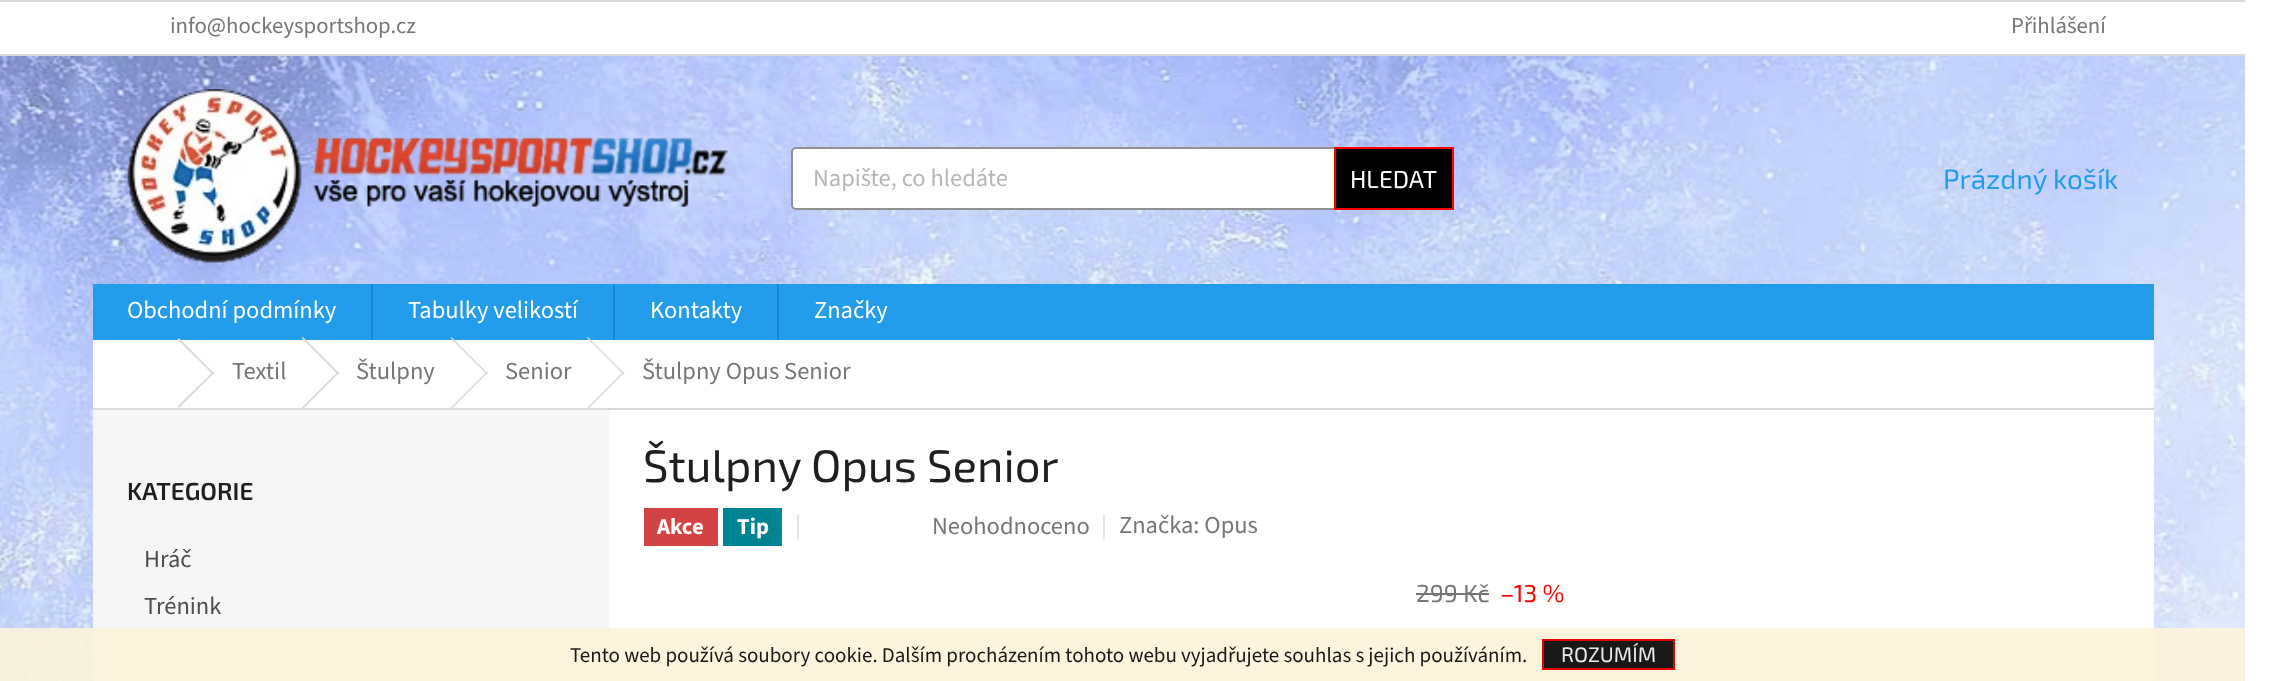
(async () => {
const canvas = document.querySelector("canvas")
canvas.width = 2270
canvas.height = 681
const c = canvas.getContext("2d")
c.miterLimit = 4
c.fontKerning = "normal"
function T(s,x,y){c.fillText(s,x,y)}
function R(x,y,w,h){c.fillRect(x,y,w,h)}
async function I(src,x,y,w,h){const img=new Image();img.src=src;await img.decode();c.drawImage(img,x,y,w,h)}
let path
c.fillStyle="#fff"
R(0,0,2270,681)
await I("1.png",0,56,2245,625)
c.fillStyle="#dadada"
R(0,0,2245,2)
R(0,54,2245,2)
c.font="22.75px 'Source Sans 3'"
c.fillStyle="#767676"
T("info@hockeysportshop.cz",170,33)
T("Přihlášení",2011,33)
await I("2.png",127,89,601,174)
c.fillStyle="#fff"
c.beginPath()
c.roundRect(792,148,661,61,4)
c.fill()
c.strokeStyle="#919191"
c.lineWidth=2
c.stroke()
c.font="24.5px 'Source Sans 3'"
c.fillStyle="#b6b6b6"
T("Napište, co hledáte",813,186)
c.fillStyle="#000"
c.beginPath()
c.rect(1335,148,118,61)
c.fill()
c.strokeStyle="#fe0000"
c.stroke()
c.font="24.5px 'Exo 2'"
c.fillStyle="#fff"
T("HLEDAT",1350,188)
c.font="28px 'Exo 2'"
c.fillStyle="#239ceb"
T("Prázdný košík",1943,189)
R(93,284,2061,56)
c.font="24.5px 'Source Sans 3'"
c.fillStyle="#fff"
T("Obchodní podmínky",127,318)
c.fillStyle="#1489d7"
R(371,284,2,56)
c.fillStyle="#fff"
T("Tabulky velikostí",408,318)
c.fillStyle="#1489d7"
R(613,284,2,56)
c.fillStyle="#fff"
T("Kontakty",650,318)
c.fillStyle="#1489d7"
R(777,284,2,56)
c.fillStyle="#fff"
T("Značky",814,318)
R(93,340,2061,68)
c.fillStyle="#dadada"
R(93,408,2061,2)
path = new Path2D("M177.5 339.5l1.5-1.5l35.5 35.5l-1.5 1z")
c.fill(path)
path = new Path2D("M213 371.5l1.5 1l-35.5 35.5l-1.5-1.5z")
c.fill(path)
c.fillStyle="#767676"
T("Textil",232,379)
c.fillStyle="#dadada"
path = new Path2D("M301.5 338l1.5-1l36.5 36.5l-1.5 1z")
c.fill(path)
path = new Path2D("M338 371.5l1.5 1l-36.5 36.5l-1.5-1z")
c.fill(path)
c.fillStyle="#767676"
T("Štulpny",356,379)
c.fillStyle="#dadada"
path = new Path2D("M450.5 338l1-1l36.5 36.5l-1 1z")
c.fill(path)
path = new Path2D("M487 371.5l1 1l-36.5 36.5l-1-1z")
c.fill(path)
c.fillStyle="#767676"
T("Senior",505,379)
c.fillStyle="#dadada"
path = new Path2D("M587 338l1-1l36.5 36.5l-1 1z")
c.fill(path)
path = new Path2D("M623.5 371.5l1 1l-36.5 36.5l-1-1z")
c.fill(path)
c.fillStyle="#767676"
T("Štulpny Opus Senior",642,379)
c.fillStyle="#fff"
R(609,410,1545,271)
c.fillStyle="#f6f6f6"
R(93,410,516,271)
c.font="600 24.5px 'Exo 2'"
c.fillStyle="#1f1f1f"
T("KATEGORIE",127,500)
c.font="24.5px 'Source Sans 3'"
c.fillStyle="#4d4d4d"
T("Hráč",144,567)
T("Trénink",144,614)
c.font="45.5px 'Exo 2'"
c.fillStyle="#1f1f1f"
T("Štulpny Opus Senior",643,482)
c.fillStyle="#d34343"
R(644,508,74,38)
c.font="bold 22.75px 'Source Sans 3'"
c.fillStyle="#fff"
T("Akce",657,534)
c.fillStyle="#008392"
R(723,508,59,38)
c.fillStyle="#fff"
T("Tip",737,534)
c.font="24.5px 'Source Sans 3'"
c.fillStyle="#dadada"
T("|",795,533)
c.fillStyle="#767676"
T("Neohodnoceno",932,534)
c.fillStyle="#dadada"
T("|",1101,533)
c.fillStyle="#767676"
T("Značka: Opus",1119,533)
c.font="24.5px 'Exo 2'"
T("299 Kč",1416,602)
R(1416,593,73,2)
c.fillStyle="#fe0000"
T("–13 %",1500,602)
c.fillStyle="#fdf3dae6"
R(0,628,2245,53)
c.font="21px 'Source Sans 3'"
c.fillStyle="#191816"
T("Tento web používá soubory cookie. Dalším procházením tohoto webu vyjadřujete souhlas s jejich používáním.",570,662)
c.fillStyle="#000000e6"
c.beginPath()
c.rect(1543,640,131,29)
c.fill()
c.strokeStyle="#e70202"
c.stroke()
c.font="21px 'Exo 2'"
c.fillStyle="#e8e8e8"
T("ROZUMÍM",1561,662)
})()
